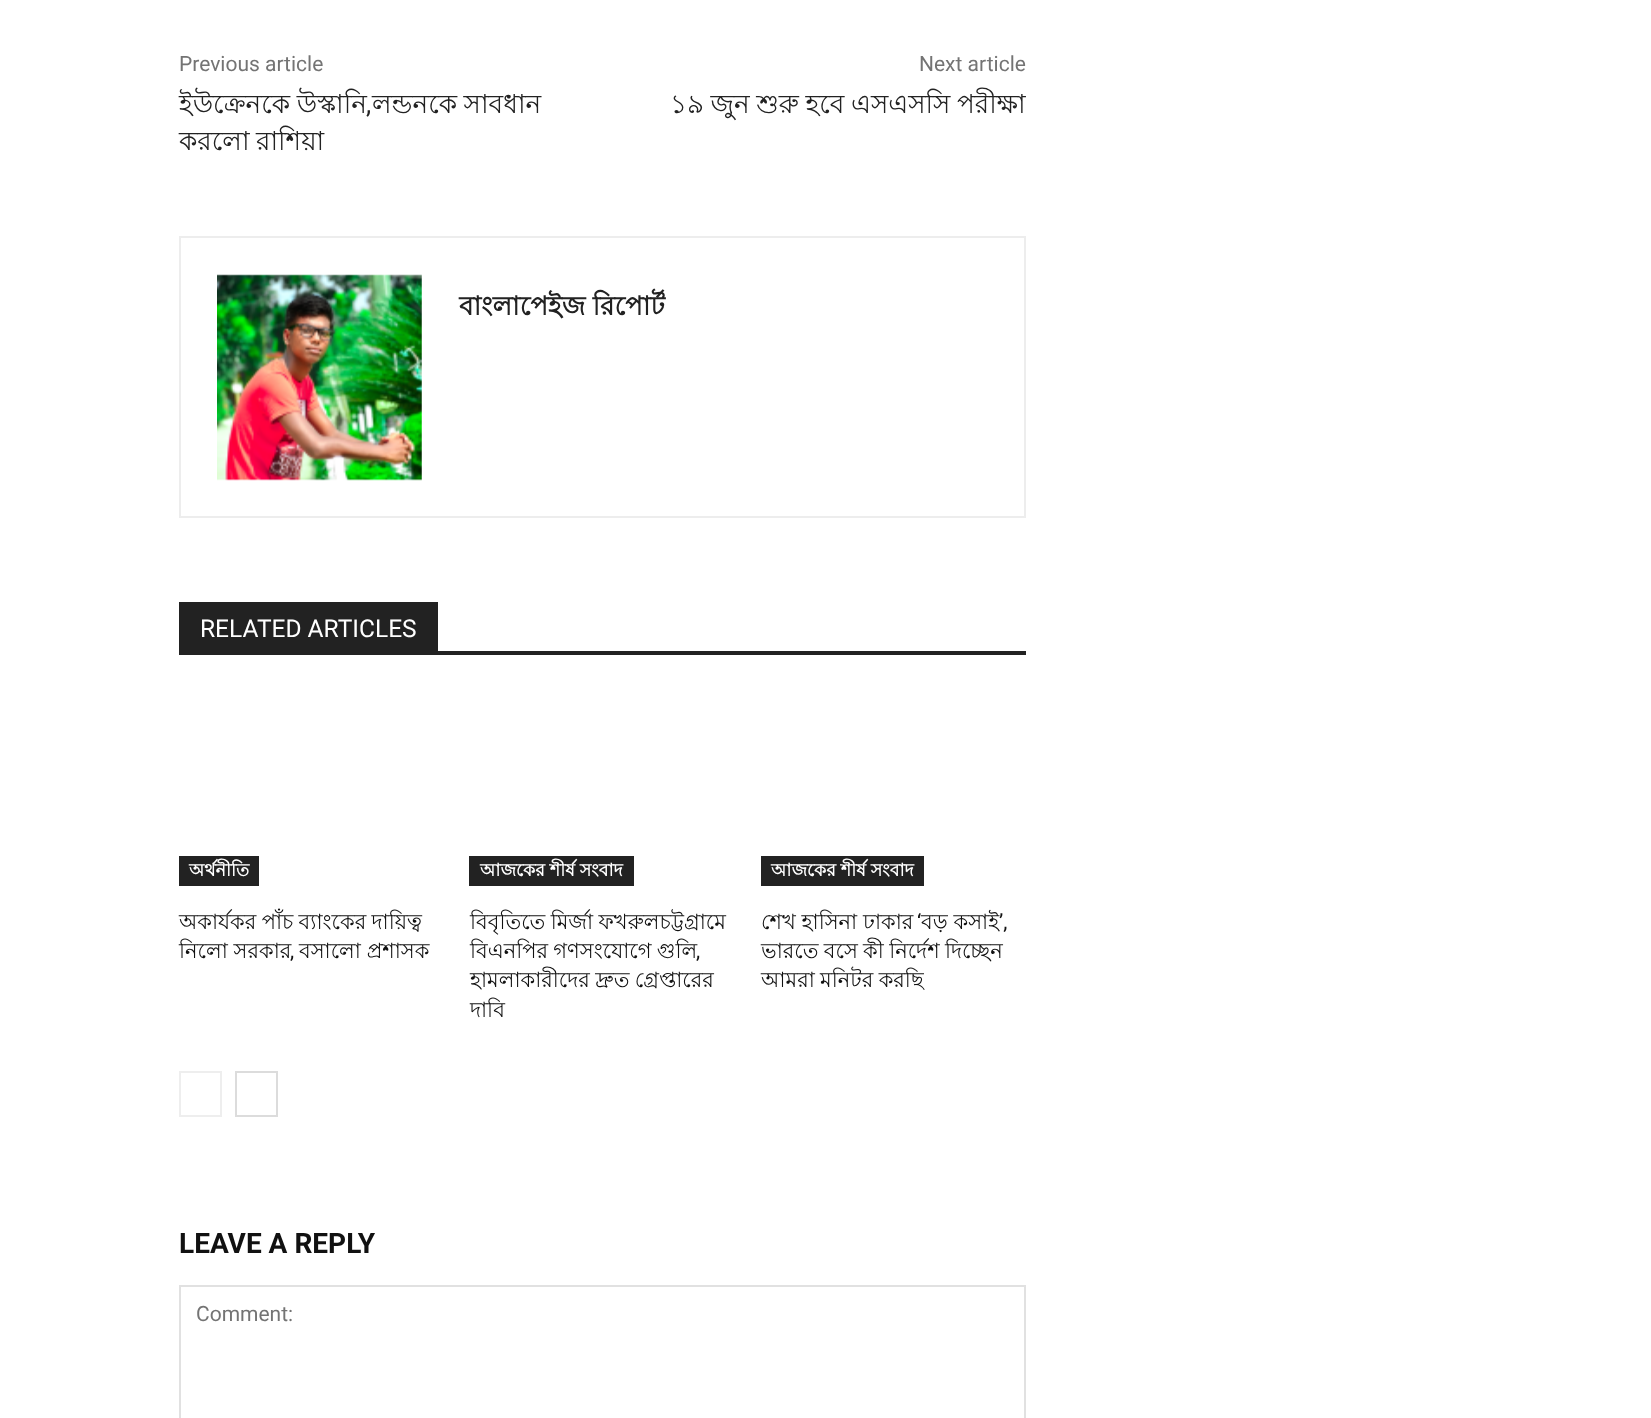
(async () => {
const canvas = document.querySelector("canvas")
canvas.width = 1651
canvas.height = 1418
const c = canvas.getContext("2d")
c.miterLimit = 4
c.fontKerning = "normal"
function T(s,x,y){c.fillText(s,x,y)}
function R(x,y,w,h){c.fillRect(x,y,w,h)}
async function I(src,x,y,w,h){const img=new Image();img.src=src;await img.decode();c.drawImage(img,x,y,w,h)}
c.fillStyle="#fff"
R(0,0,1651,1418)
c.font="21px Roboto"
c.fillStyle="#747474"
T("Previous article",179,71)
c.wordSpacing="-0.75px"
c.font="26.25px Lohit Bengali"
c.fillStyle="#222"
T("ইউক্রেনকে উস্কানি",179,113)
c.wordSpacing="0px"
c.font="26.25px Roboto"
T(",",366,113)
c.wordSpacing="-0.75px"
c.font="26.25px Lohit Bengali"
T("লন্ডনকে সাবধান",372,113)
T("করলো রাশিয়া",179,150)
c.wordSpacing="0px"
c.font="21px Roboto"
c.fillStyle="#747474"
T("Next article",919,71)
c.wordSpacing="-0.75px"
c.font="26.25px Lohit Bengali"
c.fillStyle="#222"
T("১৯ জুন শুরু হবে এসএসসি পরীক্ষা",670,113)
c.strokeStyle="#ededed"
c.lineWidth=2
c.strokeRect(180,237,845,280)
await I("1.png",217,274,205,207)
c.wordSpacing="0px"
c.font="bold 26.25px Lohit Bengali"
T("বাংলাপেইজ রিপোর্ট",459,315)
R(179,651,847,4)
R(179,602,259,49)
c.font="24.5px Roboto"
c.fillStyle="#fff"
T("RELATED ARTICLES",200,637)
c.fillStyle="#222"
R(179,856,80,30)
c.font="bold 17.5px Lohit Bengali"
c.fillStyle="#fff"
T("অর্থনীতি",189,876)
c.wordSpacing="-0.5px"
c.font="21px Lohit Bengali"
c.fillStyle="#111"
T("অকার্যকর পাঁচ ব্যাংকের দায়িত্ব",179,929)
c.wordSpacing="0px"
T("নিলো সরকার",179,958)
c.font="21px Roboto"
T(",",290,958)
c.font="21px Lohit Bengali"
T("বসালো প্রশাসক",299,958)
c.fillStyle="#222"
R(469,856,165,30)
c.font="bold 17.5px Lohit Bengali"
c.fillStyle="#fff"
T("আজকের শীর্ষ সংবাদ",480,876)
c.wordSpacing="-0.5px"
c.font="21px Lohit Bengali"
c.fillStyle="#111"
T("বিবৃতিতে মির্জা ফখরুলচট্টগ্রামে",470,929)
T("বিএনপির গণসংযোগে গুলি",470,958)
c.wordSpacing="0px"
c.font="21px Roboto"
T(",",696,958)
c.wordSpacing="-0.5px"
c.font="21px Lohit Bengali"
T("হামলাকারীদের দ্রুত গ্রেপ্তারের",470,987)
c.wordSpacing="0px"
T("দাবি",470,1017)
c.fillStyle="#222"
R(761,856,163,30)
c.font="bold 17.5px Lohit Bengali"
c.fillStyle="#fff"
T("আজকের শীর্ষ সংবাদ",771,876)
c.font="21px Lohit Bengali"
c.fillStyle="#111"
T("শেখ হাসিনা ঢাকার",761,929)
c.font="21px Roboto"
T("‘",917,929)
c.font="21px Lohit Bengali"
T("বড় কসাই",921,929)
c.font="21px Roboto"
T("’,",999,929)
c.wordSpacing="-0.5px"
c.font="21px Lohit Bengali"
T("ভারতে বসে কী নির্দেশ দিচ্ছেন",761,958)
T("আমরা মনিটর করছি",761,987)
c.strokeStyle="#eee"
c.strokeRect(180,1072,41,44)
c.strokeStyle="#dcdcdc"
c.strokeRect(236,1072,41,44)
c.wordSpacing="0px"
c.font="bold 28px Roboto"
T("LEAVE A REPLY",179,1253)
c.strokeStyle="#e1e1e1"
c.strokeRect(180,1286,845,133)
c.font="21px Roboto"
c.fillStyle="#747474"
T("Comment:",196,1321)
})()
